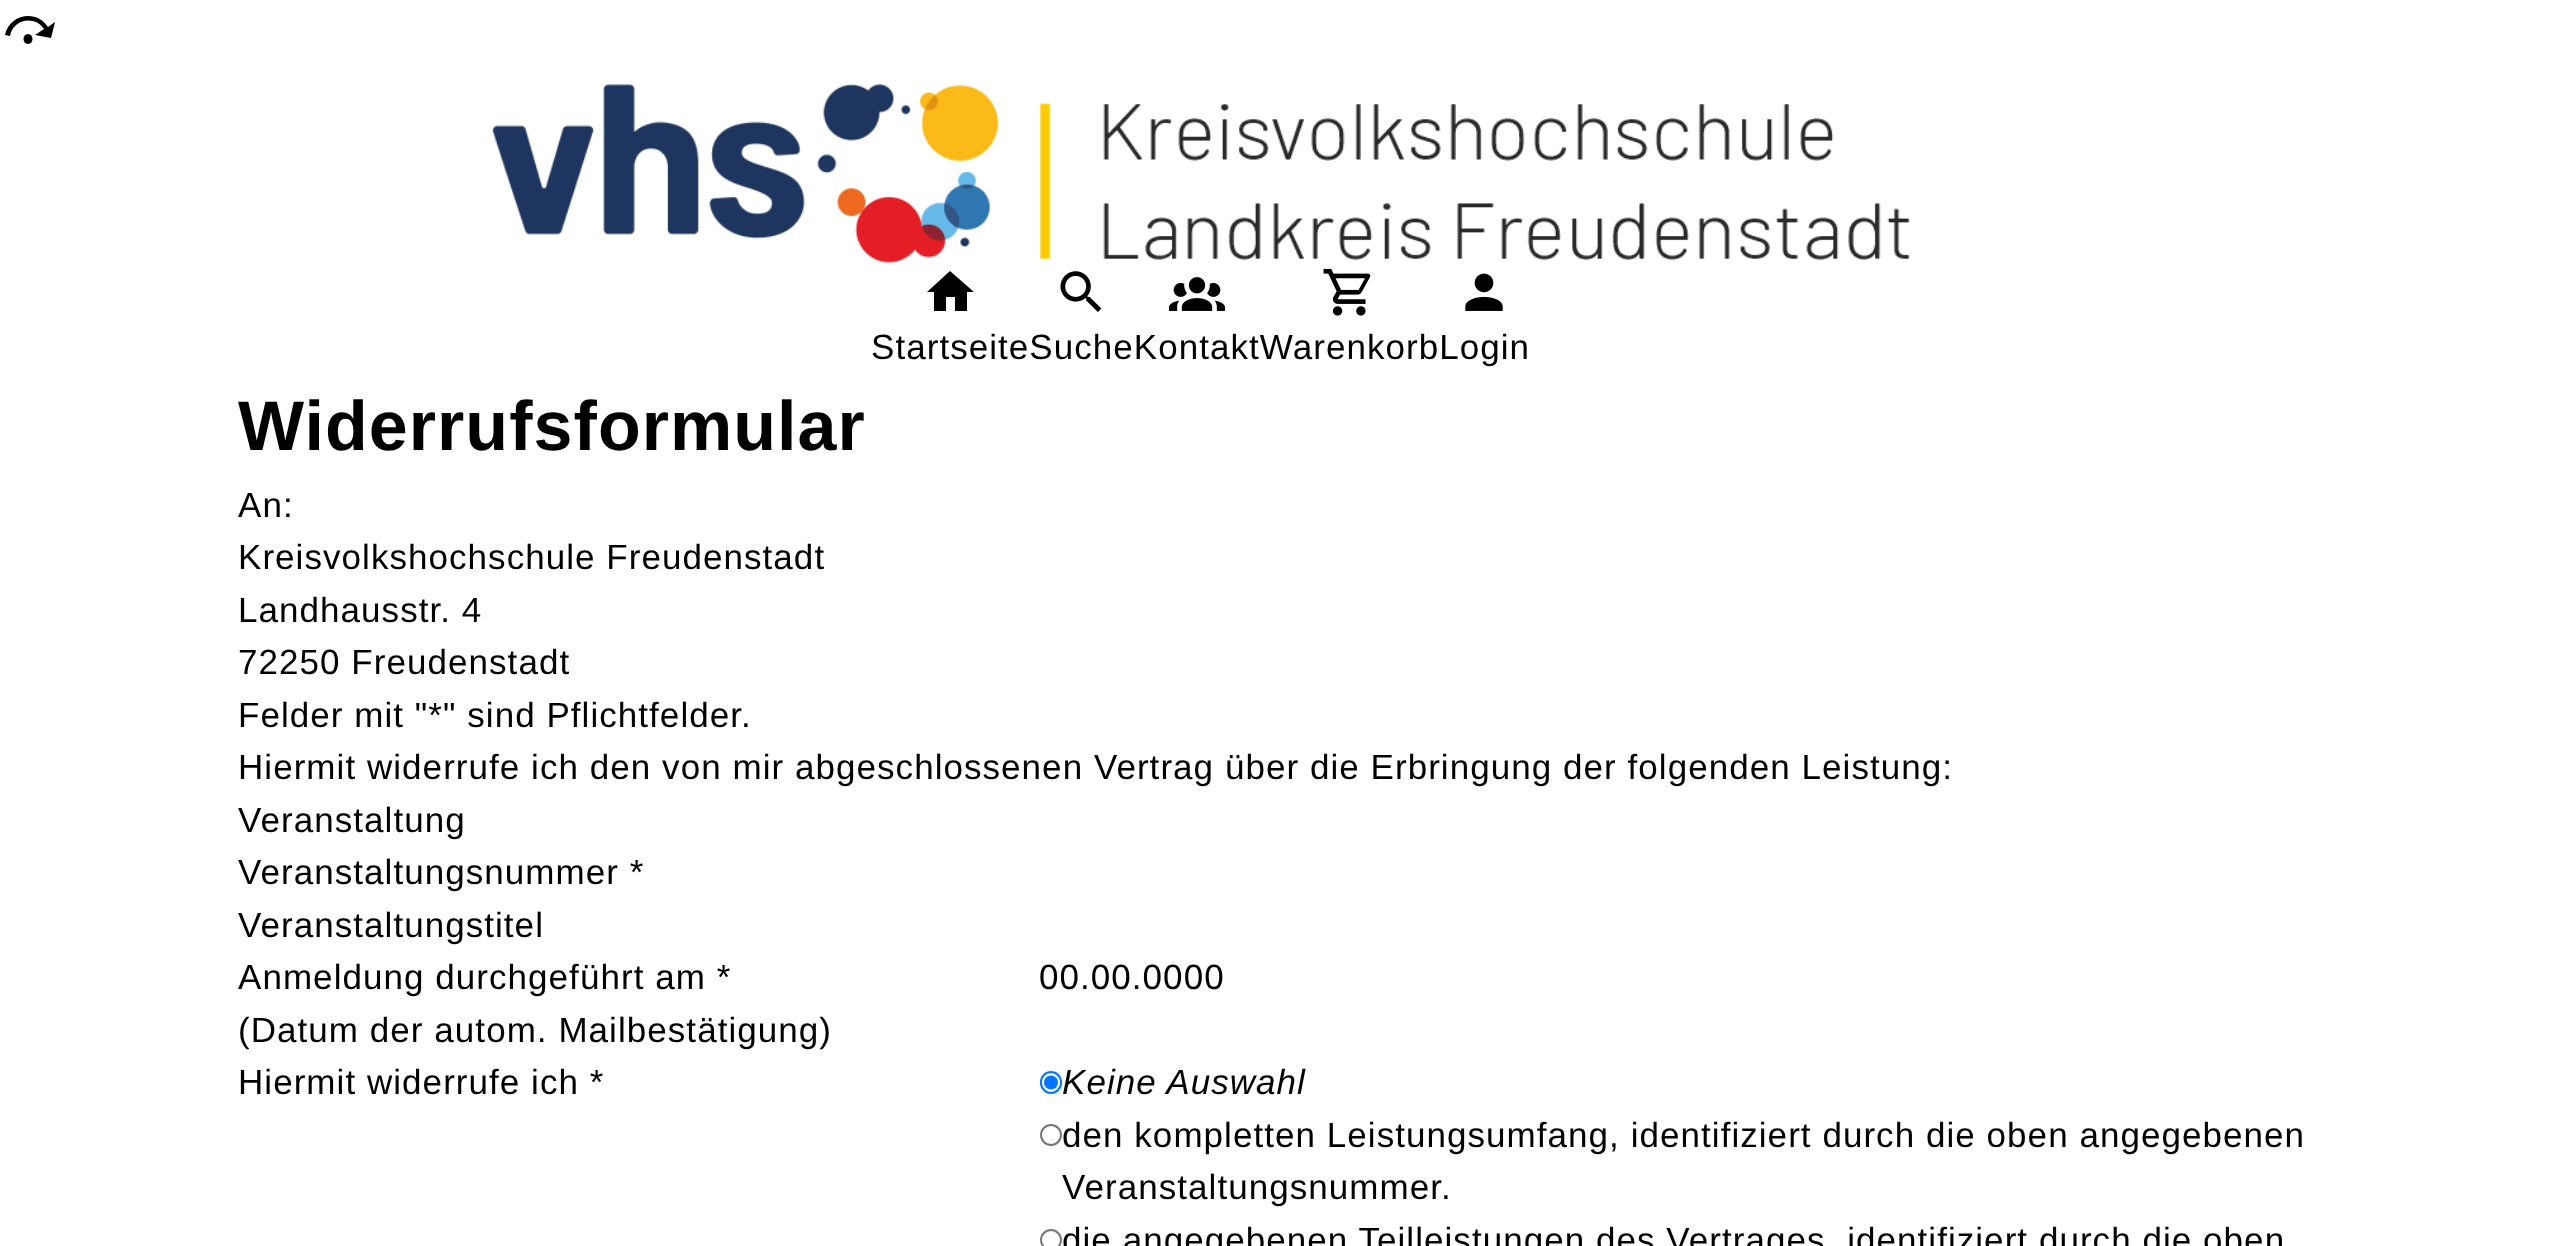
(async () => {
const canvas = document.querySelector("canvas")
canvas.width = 2576
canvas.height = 1246
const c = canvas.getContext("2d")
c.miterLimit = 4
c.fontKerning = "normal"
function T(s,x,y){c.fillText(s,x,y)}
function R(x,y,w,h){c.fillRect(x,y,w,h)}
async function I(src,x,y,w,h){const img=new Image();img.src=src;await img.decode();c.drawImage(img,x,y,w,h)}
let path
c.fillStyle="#fff"
R(0,0,2576,1246)
c.fillStyle="#000"
path = new Path2D("M28 34c6 0 6 10 0 10c-6 0-6-10 0-10m27-12l-4 16l-16-3l9-6c-9-14-31-10-34 7l-5-1c4-21 32-26 43-8z")
c.fill(path)
await I("1.png",492,84,1418,179)
await I("2.png",1060,271,42,41)
await I("3.png",1169,277,56,34)
await I("4.png",1323,268,48,48)
await I("5.png",1465,273,38,38)
path = new Path2D("M946 311v-14h9v14h12v-19h7l-24-21l-23 21h7v19z")
c.fill(path)
c.letterSpacing="1.05px"
c.font="35px Liberation Sans"
T("StartseiteSucheKontaktWarenkorbLogin",871,359)
c.font="bold 70px Liberation Sans"
T("Widerrufsformular",238,450)
c.font="35px Liberation Sans"
T("An:",238,517)
T("Kreisvolkshochschule Freudenstadt",238,569)
T("Landhausstr. 4",238,622)
T("72250 Freudenstadt",238,674)
T("Felder mit \"*\" sind Pflichtfelder.",238,727)
T("Hiermit widerrufe ich den von mir abgeschlossenen Vertrag über die Erbringung der folgenden Leistung:",238,779)
T("Veranstaltung",238,832)
T("Veranstaltungsnummer *",238,884)
T("Veranstaltungstitel",238,937)
T("Anmeldung durchgeführt am *",238,989)
T("00.00.0000",1039,989)
T("(Datum der autom. Mailbestätigung)",238,1042)
T("Hiermit widerrufe ich *",238,1094)
c.beginPath()
c.roundRect(1041,1072,20,21,10)
c.strokeStyle="#0075ff"
c.lineWidth=2
c.stroke()
c.fillStyle="#0075ff"
c.beginPath()
c.arc(1051,1082.5,7,0,7)
c.fill()
c.font="italic 35px Liberation Sans"
c.fillStyle="#000"
T("Keine Auswahl",1062,1094)
c.beginPath()
c.arc(1051,1135,10,0,7)
c.strokeStyle="#767676"
c.stroke()
c.font="35px Liberation Sans"
T("den kompletten Leistungsumfang, identifiziert durch die oben angegebenen",1062,1147)
T("Veranstaltungsnummer.",1062,1199)
c.beginPath()
c.arc(1051,1240,10,0,7)
c.stroke()
T("die angegebenen Teilleistungen des Vertrages, identifiziert durch die oben",1062,1252)
})()
